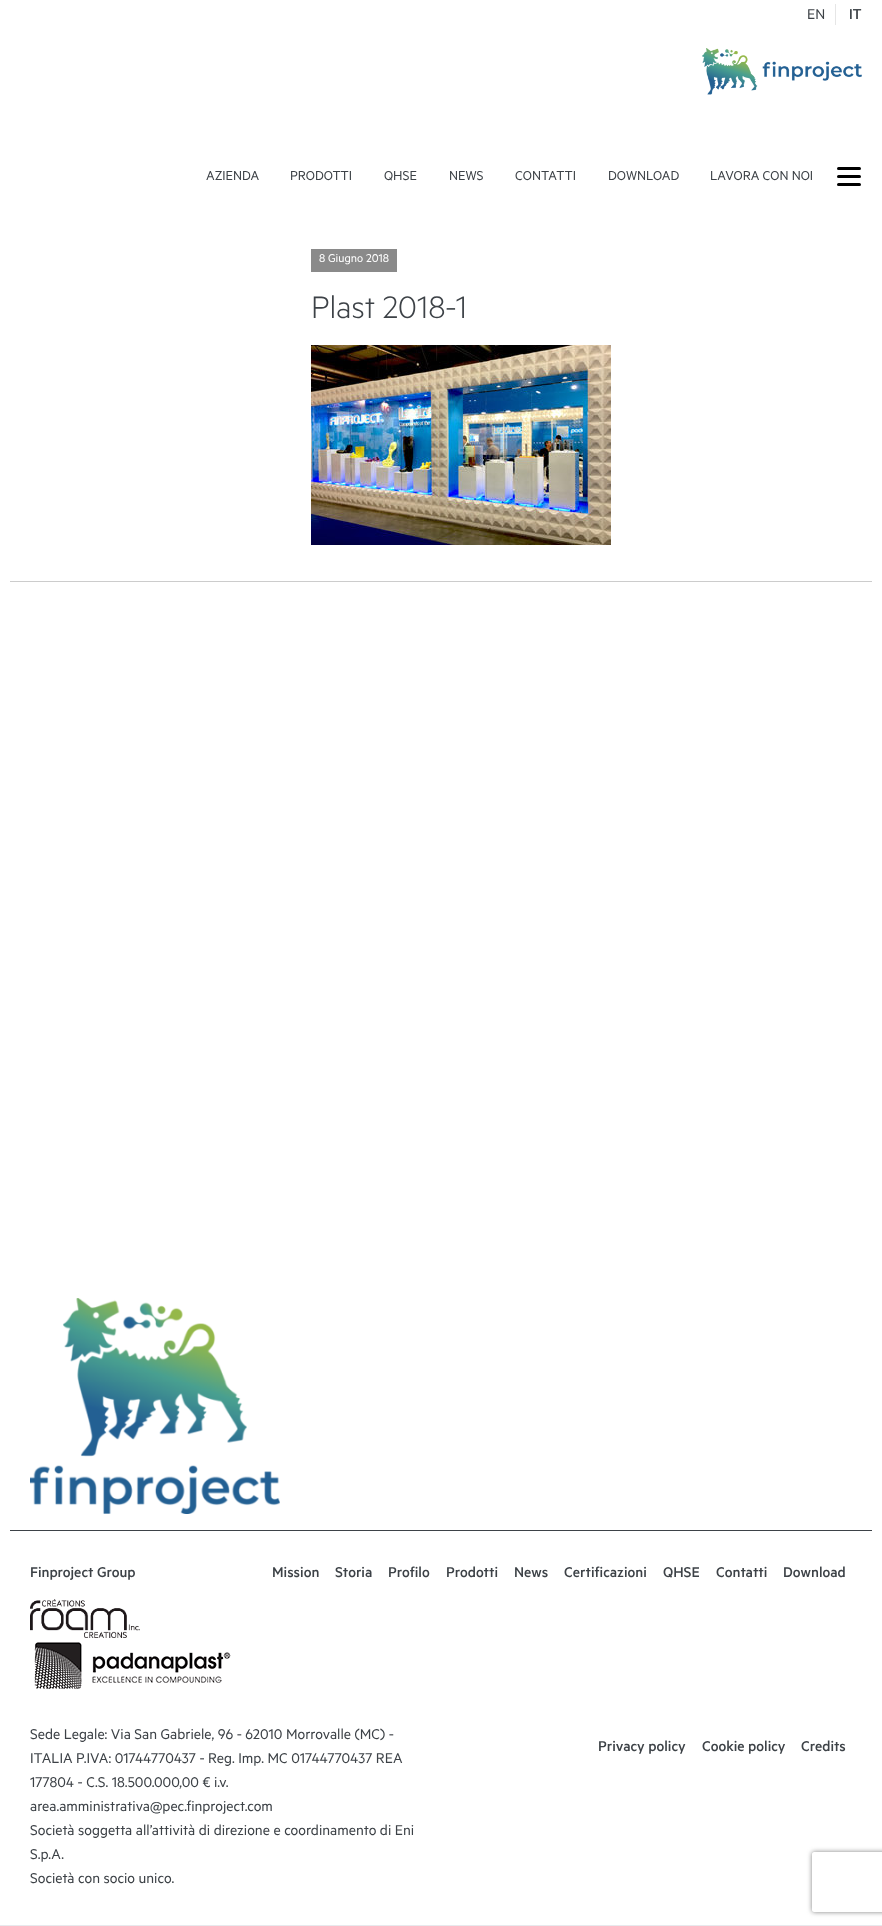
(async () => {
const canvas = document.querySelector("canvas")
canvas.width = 882
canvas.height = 1926
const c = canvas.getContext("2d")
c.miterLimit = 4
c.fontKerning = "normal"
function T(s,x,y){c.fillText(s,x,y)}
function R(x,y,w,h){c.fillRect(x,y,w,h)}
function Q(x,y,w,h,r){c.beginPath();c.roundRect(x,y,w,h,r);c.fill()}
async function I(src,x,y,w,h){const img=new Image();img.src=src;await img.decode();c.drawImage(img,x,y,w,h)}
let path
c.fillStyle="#e8e9ed"
R(0,0,882,1926)
c.fillStyle="#fff"
R(0,0,882,1925)
c.font="16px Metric"
c.fillStyle="#3d4247"
T("IT",849,19)
T("IT",849,19)
await I("1.png",702,48,160,47)
c.font="14.5px Metric"
T("AZIENDA",206,180)
T("PRODOTTI",290,180)
T("QHSE",384,180)
T("NEWS",449,180)
T("CONTATTI",515,180)
T("DOWNLOAD",608,180)
T("LAVORA CON NOI",710,180)
c.fillStyle="#000"
Q(837,183,24,3,1.5)
Q(837,167,24,3,1.5)
Q(837,175,24,3,1.5)
c.font="16px Metric"
c.fillStyle="#3d4247"
T("EN",807,19)
c.fillStyle="#e6e6e6"
R(835,4,1,21)
c.fillStyle="#ccc"
R(10,581,862,1)
c.fillStyle="#8a8a8a"
R(311,249,86,23)
c.font="12.75px Metric"
c.fillStyle="#fff"
T("8 Giugno 2018",319,262)
c.font="300 35px Metric"
c.fillStyle="#3d4247"
T("Plast 2018-1",311,318)
await I("2.png",311,345,300,200)
await I("3.png",30,1298,250,216)
R(10,1530,862,1)
c.font="500 16px Metric"
T("Finproject Group",30,1577)
T("Mission",272,1577)
T("Storia",335,1577)
T("Profilo",388,1577)
T("Prodotti",446,1577)
T("News",514,1577)
T("Certificazioni",564,1577)
T("QHSE",663,1577)
T("Contatti",716,1577)
T("Download",783,1577)
await I("4.png",30,1599,110,39)
await I("5.png",34,1642,197,48)
c.font="16px Metric"
T("Sede Legale: Via San Gabriele, 96 - 62010 Morrovalle (MC) -",30,1739)
T("ITALIA P.IVA: 01744770437 - Reg. Imp. MC 01744770437 REA",30,1763)
T("177804 - C.S. 18.500.000,00 € i.v.",30,1787)
T("area.amministrativa@pec.finproject.com",30,1811)
T("Società soggetta all’attività di direzione e coordinamento di Eni",30,1835)
T("S.p.A.",30,1859)
T("Società con socio unico.",30,1883)
c.font="500 16px Metric"
T("Privacy policy",598,1751)
T("Cookie policy",702,1751)
T("Credits",801,1751)
c.save()
path = new Path2D("M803 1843h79v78h-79zm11 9h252c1 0 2 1 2 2v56c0 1-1 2-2 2h-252c-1 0-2-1-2-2v-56c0-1 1-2 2-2z")
c.clip(path,"evenodd")
c.fillStyle="#808080"
c.filter="blur(2.5px)"
c.beginPath()
c.roundRect(812,1852,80,60,2)
c.fill()
c.filter="none"
c.restore()
})()
